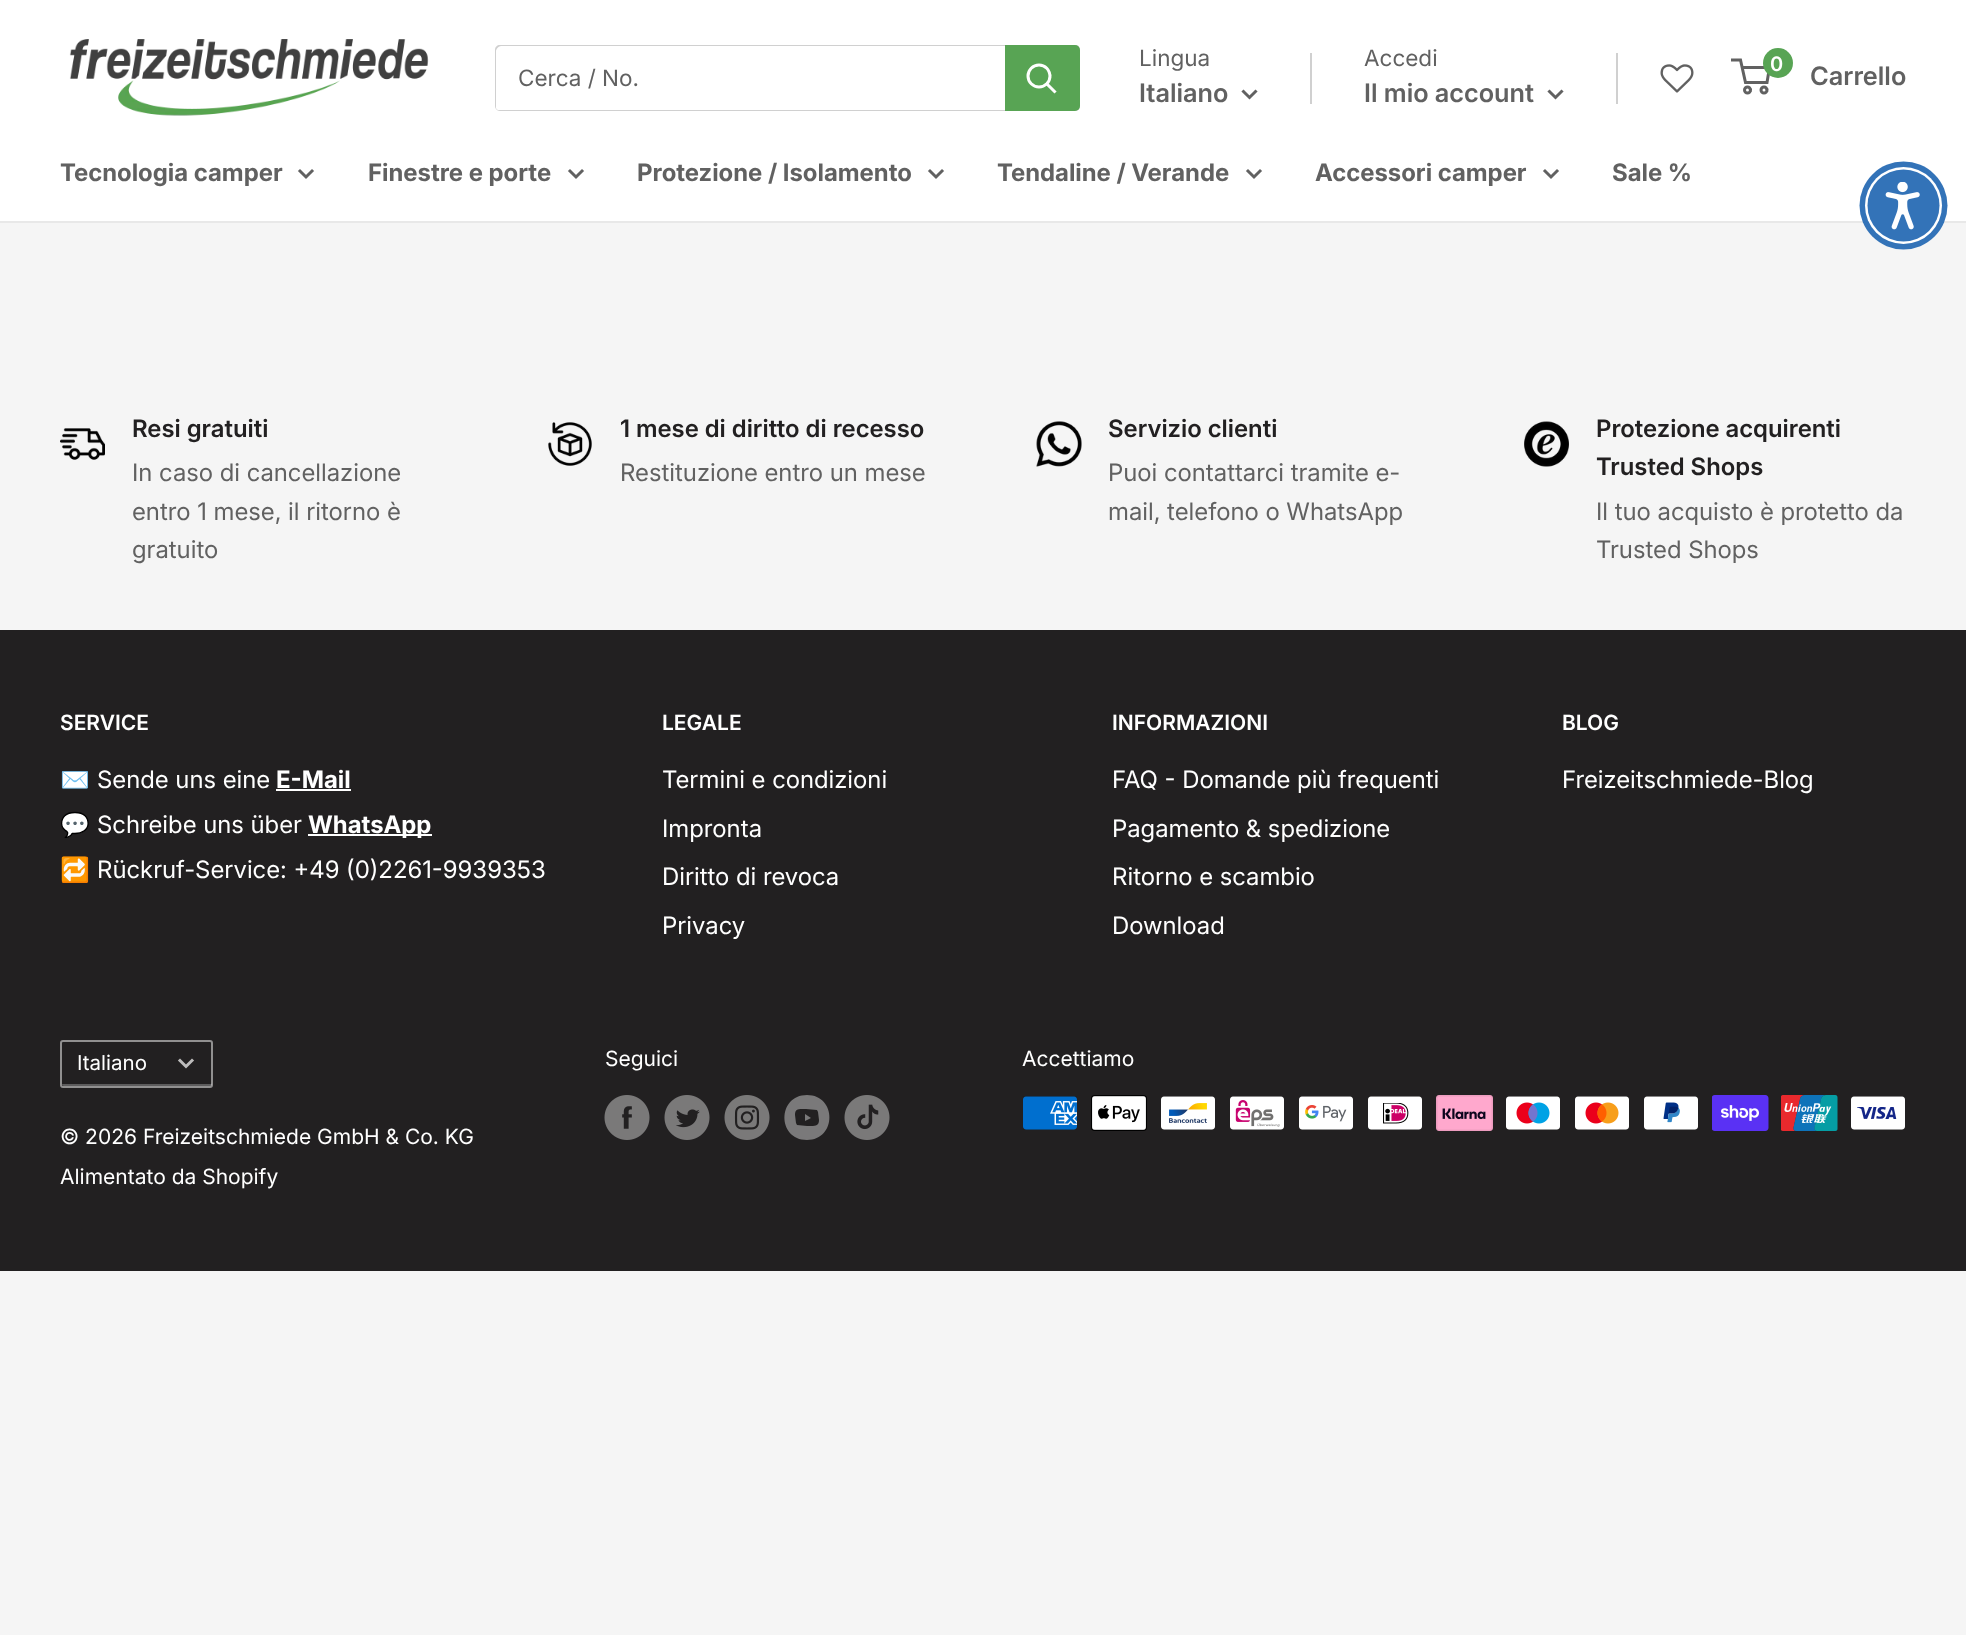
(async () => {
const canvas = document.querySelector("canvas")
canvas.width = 1966
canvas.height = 1635
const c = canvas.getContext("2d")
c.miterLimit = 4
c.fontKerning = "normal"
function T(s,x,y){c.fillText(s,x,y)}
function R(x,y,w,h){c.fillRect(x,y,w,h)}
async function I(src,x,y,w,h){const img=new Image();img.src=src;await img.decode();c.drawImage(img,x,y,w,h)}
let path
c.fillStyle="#f5f5f5"
R(0,0,1966,1635)
c.fillStyle="#fff"
R(0,0,1966,221)
await I("1.png",69,39,360,77)
c.fillStyle="#d0d0d0"
path = new Path2D("M496 109c1 1 2 2 4 2h575c3 0 5-2 5-5v-56c0-2-1-4-3-5c1 1 1 2 1 3v57c0 2-2 5-4 5h-576z")
c.fill(path)
path = new Path2D("M501 46h576h2c-1 0-3-1-4-1h-575c-3 0-5 2-5 5v56c0 2 1 3 2 4l-1-2v-57c0-2 3-5 5-5z")
c.fill(path)
c.font="22.5px 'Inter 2'"
c.fillStyle="#616161"
T("Cerca / No.",518,86)
c.fillStyle="#58a454"
c.beginPath()
c.roundRect(1005,45,75,66,[0,5,5,0])
c.fill()
path = new Path2D("M1054.5 91.5l-7.5-7.5")
c.strokeStyle="#fff"
c.lineWidth=3
c.lineCap="square"
c.stroke(path)
c.beginPath()
c.arc(1039,76,11,0,7)
c.stroke()
c.fillStyle="#616161"
T("Lingua",1139,66)
c.font="600 25.5px 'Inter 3'"
T("Italiano",1139,102)
path = new Path2D("M1255.5 91.5l-6 6l-6-6")
c.strokeStyle="#616161"
c.stroke(path)
c.fillStyle="#d0d0d0"
R(1310,53,2,51)
c.font="22.5px 'Inter 2'"
c.fillStyle="#616161"
T("Accedi",1364,66)
c.fillStyle="#d0d0d0"
R(1616,53,2,51)
c.font="600 25.5px 'Inter 3'"
c.fillStyle="#616161"
T("Il mio account",1364,102)
path = new Path2D("M1561.5 91.5l-6 6l-6-6")
c.stroke(path)
await I("2.png",1660,64,34,29)
c.beginPath()
c.arc(1747.5,90,3,0,7)
c.stroke()
c.beginPath()
c.arc(1764,90,3,0,7)
c.stroke()
path = new Path2D("M1742 67.5h27.5l-2.5 15h-21.5l-5-22.5h-9.5")
c.lineCap="butt"
c.stroke(path)
c.fillStyle="#58a454"
c.beginPath()
c.arc(1778,63,15,0,7)
c.fill()
c.font="600 20px 'Inter 2'"
c.fillStyle="#fff"
T("0",1770,71)
c.font="600 25.5px 'Inter 3'"
c.fillStyle="#616161"
T("Carrello",1810,85)
c.fillStyle="#e8e8e8"
R(0,221,1966,2)
c.font="bold 24px Inter"
c.fillStyle="#616161"
T("Tecnologia camper",60,181)
path = new Path2D("M312 171l-6 6l-6-6")
c.lineCap="square"
c.stroke(path)
T("Finestre e porte",368,181)
path = new Path2D("M582 171l-6 6l-6-6")
c.stroke(path)
T("Protezione / Isolamento",637,181)
path = new Path2D("M942 171l-6 6l-6-6")
c.stroke(path)
T("Tendaline / Verande",997,181)
path = new Path2D("M1260 171l-6 6l-6-6")
c.stroke(path)
T("Accessori camper",1315,181)
path = new Path2D("M1557 171l-6 6l-6-6")
c.stroke(path)
T("Sale %",1612,181)
c.fillStyle="#3373b8"
c.beginPath()
c.arc(1903.5,205.5,44,0,7)
c.fill()
c.fillStyle="#fff"
c.beginPath()
c.arc(1903.5,205.5,38.5,0,7)
c.fill()
c.fillStyle="#3373b8"
c.beginPath()
c.arc(1903.5,205.5,36,0,7)
c.fill()
await I("3.png",1885,182,35,48)
await I("4.png",60,428,45,32)
c.font="600 24px Inter"
c.fillStyle="#222021"
T("Resi gratuiti",132,437)
c.font="24px Inter"
c.fillStyle="#616161"
T("In caso di cancellazione",132,481)
T("entro 1 mese, il ritorno è",132,520)
T("gratuito",132,558)
await I("5.png",548,422,44,44)
c.font="600 24px Inter"
c.fillStyle="#222021"
T("1 mese di diritto di recesso",620,437)
c.font="24px Inter"
c.fillStyle="#616161"
T("Restituzione entro un mese",620,481)
await I("6.png",1036,421,46,46)
c.font="600 24px Inter"
c.fillStyle="#222021"
T("Servizio clienti",1108,437)
c.font="24px Inter"
c.fillStyle="#616161"
T("Puoi contattarci tramite e-",1108,481)
T("mail, telefono o WhatsApp",1108,520)
await I("7.png",1524,421,45,46)
c.font="600 24px Inter"
c.fillStyle="#222021"
T("Protezione acquirenti",1596,437)
T("Trusted Shops",1596,475)
c.font="24px Inter"
c.fillStyle="#616161"
T("Il tuo acquisto è protetto da",1596,520)
T("Trusted Shops",1596,558)
c.fillStyle="#222021"
R(0,630,1966,641)
c.font="600 21px 'Inter 2'"
c.fillStyle="#fff"
T("SERVICE",60,730)
c.font="24px Noto Color Emoji"
T("✉️",60,788)
c.font="24px Inter"
T("Sende uns eine",97,788)
c.font="bold 24px Inter"
T("E-Mail",276,788)
R(276,789,75,2)
c.font="24px Noto Color Emoji"
T("💬",60,833)
c.font="24px Inter"
T("Schreibe uns über",97,833)
R(308,834,124,2)
c.font="bold 24px Inter"
T("WhatsApp",308,833)
c.font="24px Noto Color Emoji"
T("🔁",60,878)
c.font="24px Inter"
T("Rückruf-Service: +49 (0)2261-9939353",97,878)
c.font="600 21px 'Inter 2'"
T("LEGALE",662,730)
c.font="24px Inter"
T("Termini e condizioni",662,788)
T("Impronta",662,837)
T("Diritto di revoca",662,885)
T("Privacy",662,934)
c.font="600 21px 'Inter 2'"
T("INFORMAZIONI",1112,730)
c.font="24px Inter"
T("FAQ - Domande più frequenti",1112,788)
T("Pagamento & spedizione",1112,837)
T("Ritorno e scambio",1112,885)
T("Download",1112,934)
c.font="600 21px 'Inter 2'"
T("BLOG",1562,730)
c.font="24px Inter"
T("Freizeitschmiede-Blog",1562,788)
c.fillStyle="#5d5c5d"
path = new Path2D("M62 1083c0 1 0 3 2 3h146c2 0 2-2 2-3c0 1-1 1-2 1h-147c-1 0-1 0-1-1z")
c.fill(path)
c.beginPath()
c.roundRect(61,1041,151,46,2)
c.strokeStyle="#ffffff80"
c.lineWidth=2
c.stroke()
c.font="20.5px 'Inter 2'"
c.fillStyle="#fff"
T("Italiano",77,1070)
path = new Path2D("M192 1060.5l-6 6l-6-6")
c.strokeStyle="#bdbcbc"
c.lineWidth=3
c.stroke(path)
c.font="21px 'Inter 2'"
T("© 2026 Freizeitschmiede GmbH & Co. KG",60,1144)
T("Alimentato da Shopify",60,1184)
T("Seguici",605,1066)
await I("8.png",604,1095,46,45)
await I("9.png",664,1095,46,45)
await I("10.png",724,1095,46,45)
c.fillStyle="#7a797a"
path = new Path2D("M807 1140c30 0 30-45 0-45c-30 0-30 45 0 45zm11-28l1 8c0 7-5 6-12 6l-10-1l-1-2l-1-8c0-7 4-6 11-6l11 1zm-13 9l6-3l-6-4z")
c.fill(path,"evenodd")
await I("11.png",844,1095,46,45)
c.fillStyle="#fff"
T("Accettiamo",1022,1066)
await I("12.png",1023,1096,54,34)
await I("13.png",1091,1095,56,36)
await I("14.png",1161,1096,54,34)
await I("15.png",1230,1096,54,34)
await I("16.png",1299,1096,54,34)
await I("17.png",1368,1096,54,34)
await I("18.png",1436,1095,57,36)
await I("19.png",1506,1096,54,34)
await I("20.png",1575,1096,54,34)
await I("21.png",1644,1096,54,34)
await I("22.png",1712,1095,57,36)
await I("23.png",1781,1095,57,36)
await I("24.png",1851,1096,54,34)
})()
